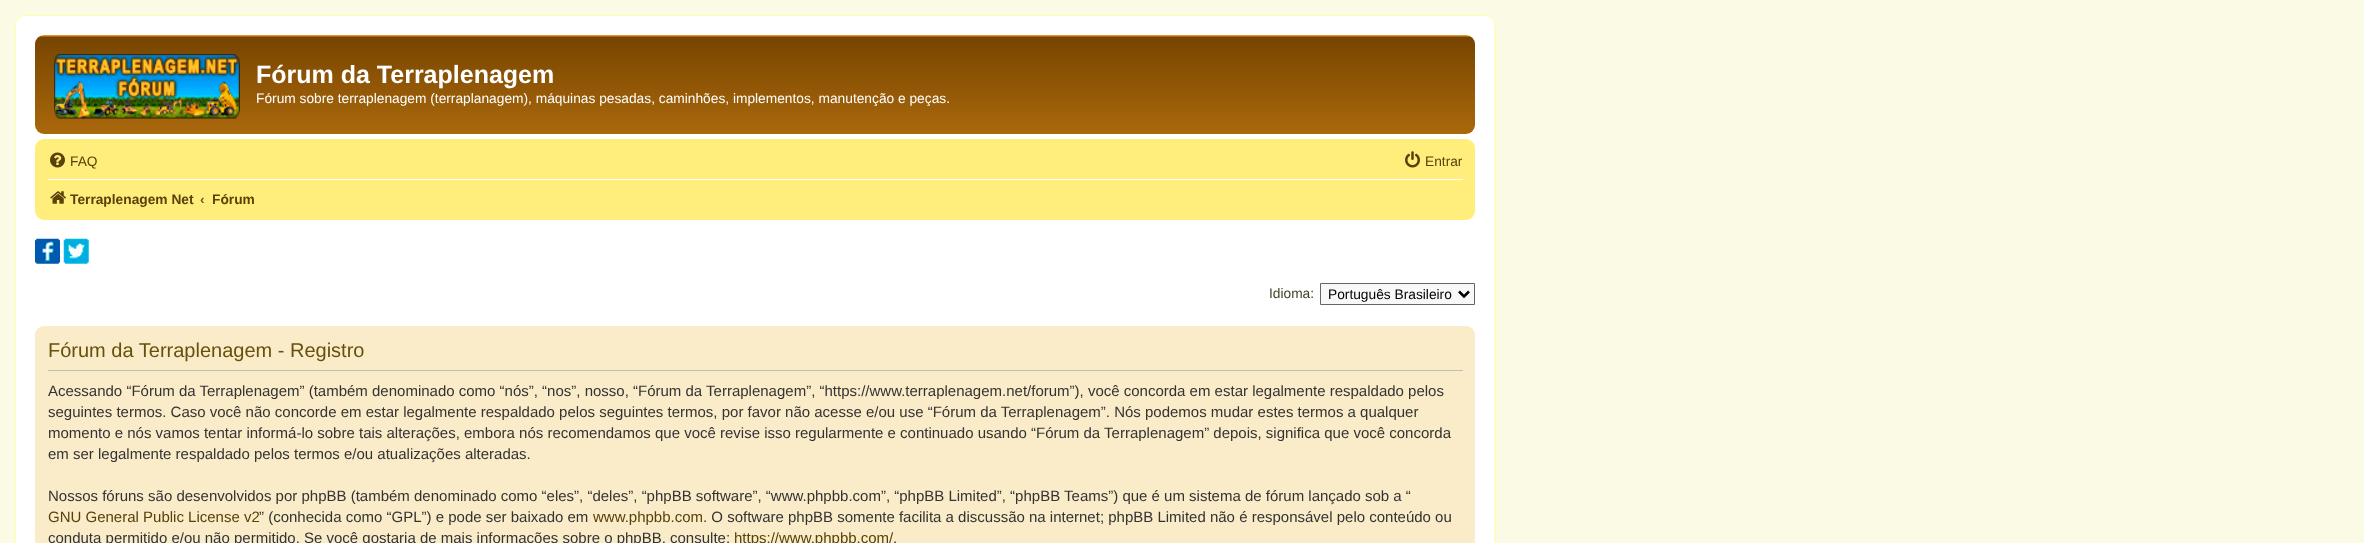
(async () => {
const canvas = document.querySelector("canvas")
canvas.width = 2364
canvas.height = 543
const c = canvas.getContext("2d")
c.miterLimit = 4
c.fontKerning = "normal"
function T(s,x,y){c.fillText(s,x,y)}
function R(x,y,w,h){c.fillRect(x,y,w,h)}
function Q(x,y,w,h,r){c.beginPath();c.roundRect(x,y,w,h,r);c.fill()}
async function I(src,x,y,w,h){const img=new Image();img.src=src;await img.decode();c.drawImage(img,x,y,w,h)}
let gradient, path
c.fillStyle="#fafae5"
R(0,0,2364,543)
c.fillStyle="#fff"
c.beginPath()
c.roundRect(15.5,15.5,1479,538,9.5)
c.fill()
c.strokeStyle="#fffead"
c.stroke()
gradient = c.createLinearGradient(755,35,755,150)
gradient.addColorStop(0,"#ffad3c")
gradient.addColorStop(.02,"#774500")
gradient.addColorStop(1,"#b36e0e")
c.fillStyle = gradient
Q(35,35,1440,99,9)
await I("1.png",54,54,186,65)
c.font="bold 25px Liberation Sans"
c.fillStyle="#fff"
T("Fórum da Terraplenagem",256,83)
c.font="13.75px Liberation Sans"
T("Fórum sobre terraplenagem (terraplanagem), máquinas pesadas, caminhões, implementos, manutenção e peças.",256,103)
c.fillStyle="#ffee7b"
Q(35,139,1440,81,9)
await I("2.png",50,152,15,16)
c.fillStyle="#58410a"
T("FAQ",70,166)
await I("3.png",1405,151,15,17)
T("Entrar",1425,166)
c.fillStyle="#fff"
R(48,179,1415,1)
await I("4.png",50,191,16,13)
c.font="bold 13.75px Liberation Sans"
c.fillStyle="#58410a"
T("Terraplenagem Net",70,204)
c.fillStyle="#615d3e"
T("‹",200,204)
c.save()
c.beginPath()
c.rect(213,184,42,30)
c.clip()
c.fillStyle="#58410a"
T("Fórum",212,204)
c.restore()
await I("5.png",35,238,25,26)
await I("6.png",63,238,26,26)
c.font="13.75px Liberation Sans"
c.fillStyle="#46432d"
T("Idioma:",1269,298)
c.fillStyle="#f8f8f8"
c.beginPath()
c.rect(1320.5,283.5,154,21)
c.fill()
c.strokeStyle="#666"
c.stroke()
path = new Path2D("M1459 291.5l5 5l5-5")
c.strokeStyle="#000"
c.lineWidth=2.5
c.stroke(path)
c.fillStyle="#000"
T("Português Brasileiro",1328,299)
c.fillStyle="#fbecc9"
Q(35,326,1440,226,9)
c.fillStyle="#bdbdbd"
R(48,370,1415,1)
c.font="20px Liberation Sans"
c.fillStyle="#65510b"
T("Fórum da Terraplenagem - Registro",48,357)
c.font="15px Liberation Sans"
c.fillStyle="#333"
T("Acessando “Fórum da Terraplenagem” (também denominado como “nós”, “nos”, nosso, “Fórum da Terraplenagem”, “https://www.terraplenagem.net/forum”), você concorda em estar legalmente respaldado pelos",48,396)
T("seguintes termos. Caso você não concorde em estar legalmente respaldado pelos seguintes termos, por favor não acesse e/ou use “Fórum da Terraplenagem”. Nós podemos mudar estes termos a qualquer",48,417)
T("momento e nós vamos tentar informá-lo sobre tais alterações, embora nós recomendamos que você revise isso regularmente e continuado usando “Fórum da Terraplenagem” depois, significa que você concorda",48,438)
T("em ser legalmente respaldado pelos termos e/ou atualizações alteradas.",48,459)
T("Nossos fóruns são desenvolvidos por phpBB (também denominado como “eles”, “deles”, “phpBB software”, “www.phpbb.com”, “phpBB Limited”, “phpBB Teams”) que é um sistema de fórum lançado sob a “",48,501)
c.fillStyle="#58410a"
T("GNU General Public License v2",48,522)
c.fillStyle="#333"
T("” (conhecida como “GPL”) e pode ser baixado em",259,522)
c.fillStyle="#58410a"
T("www.phpbb.com",593,522)
c.fillStyle="#333"
T(". O software phpBB somente facilita a discussão na internet; phpBB Limited não é responsável pelo conteúdo ou",703,522)
T("conduta permitido e/ou não permitido. Se você gostaria de mais informações sobre o phpBB, consulte:",48,543)
c.fillStyle="#58410a"
T("https://www.phpbb.com/",734,543)
c.fillStyle="#333"
T(".",893,543)
})()
